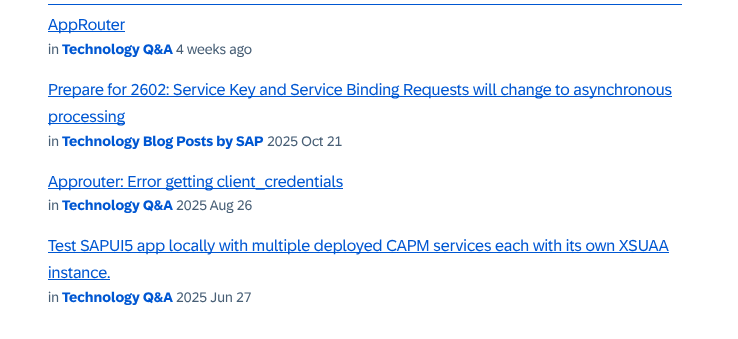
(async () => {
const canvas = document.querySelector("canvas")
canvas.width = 738
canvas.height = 339
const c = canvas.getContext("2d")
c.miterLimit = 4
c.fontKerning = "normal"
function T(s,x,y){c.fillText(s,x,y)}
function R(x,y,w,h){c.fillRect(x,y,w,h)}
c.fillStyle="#fff"
R(0,0,738,339)
c.fillStyle="#0057d2"
R(48,31,77,1)
c.font="16px '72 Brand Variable'"
T("AppRouter",48,30)
R(48,4,634,1)
c.font="14px '72 Brand Variable'"
c.fillStyle="#475e75"
T("in",48,54)
c.font="bold 14px '72 Brand Variable'"
c.fillStyle="#0057d2"
T("Technology Q&A",62,54)
c.font="14px '72 Brand Variable'"
c.fillStyle="#475e75"
T("4 weeks ago",176,54)
c.fillStyle="#0057d2"
R(48,96,624,1)
c.font="16px '72 Brand Variable'"
T("Prepare for 2602: Service Key and Service Binding Requests will change to asynchronous",48,95)
R(48,123,77,1)
T("processing",48,122)
c.font="14px '72 Brand Variable'"
c.fillStyle="#475e75"
T("in",48,146)
c.font="bold 14px '72 Brand Variable'"
c.fillStyle="#0057d2"
T("Technology Blog Posts by SAP",62,146)
c.font="14px '72 Brand Variable'"
c.fillStyle="#475e75"
T("2025 Oct 21",267,146)
c.fillStyle="#0057d2"
R(48,188,295,1)
c.font="16px '72 Brand Variable'"
T("Approuter: Error getting client_credentials",48,187)
c.font="14px '72 Brand Variable'"
c.fillStyle="#475e75"
T("in",48,210)
c.font="bold 14px '72 Brand Variable'"
c.fillStyle="#0057d2"
T("Technology Q&A",62,210)
c.font="14px '72 Brand Variable'"
c.fillStyle="#475e75"
T("2025 Aug 26",176,210)
c.fillStyle="#0057d2"
R(48,252,621,1)
c.font="16px '72 Brand Variable'"
T("Test SAPUI5 app locally with multiple deployed CAPM services each with its own XSUAA",48,251)
T("instance.",48,278)
R(48,279,62,1)
c.font="14px '72 Brand Variable'"
c.fillStyle="#475e75"
T("in",48,302)
c.font="bold 14px '72 Brand Variable'"
c.fillStyle="#0057d2"
T("Technology Q&A",62,302)
c.font="14px '72 Brand Variable'"
c.fillStyle="#475e75"
T("2025 Jun 27",176,302)
})()
